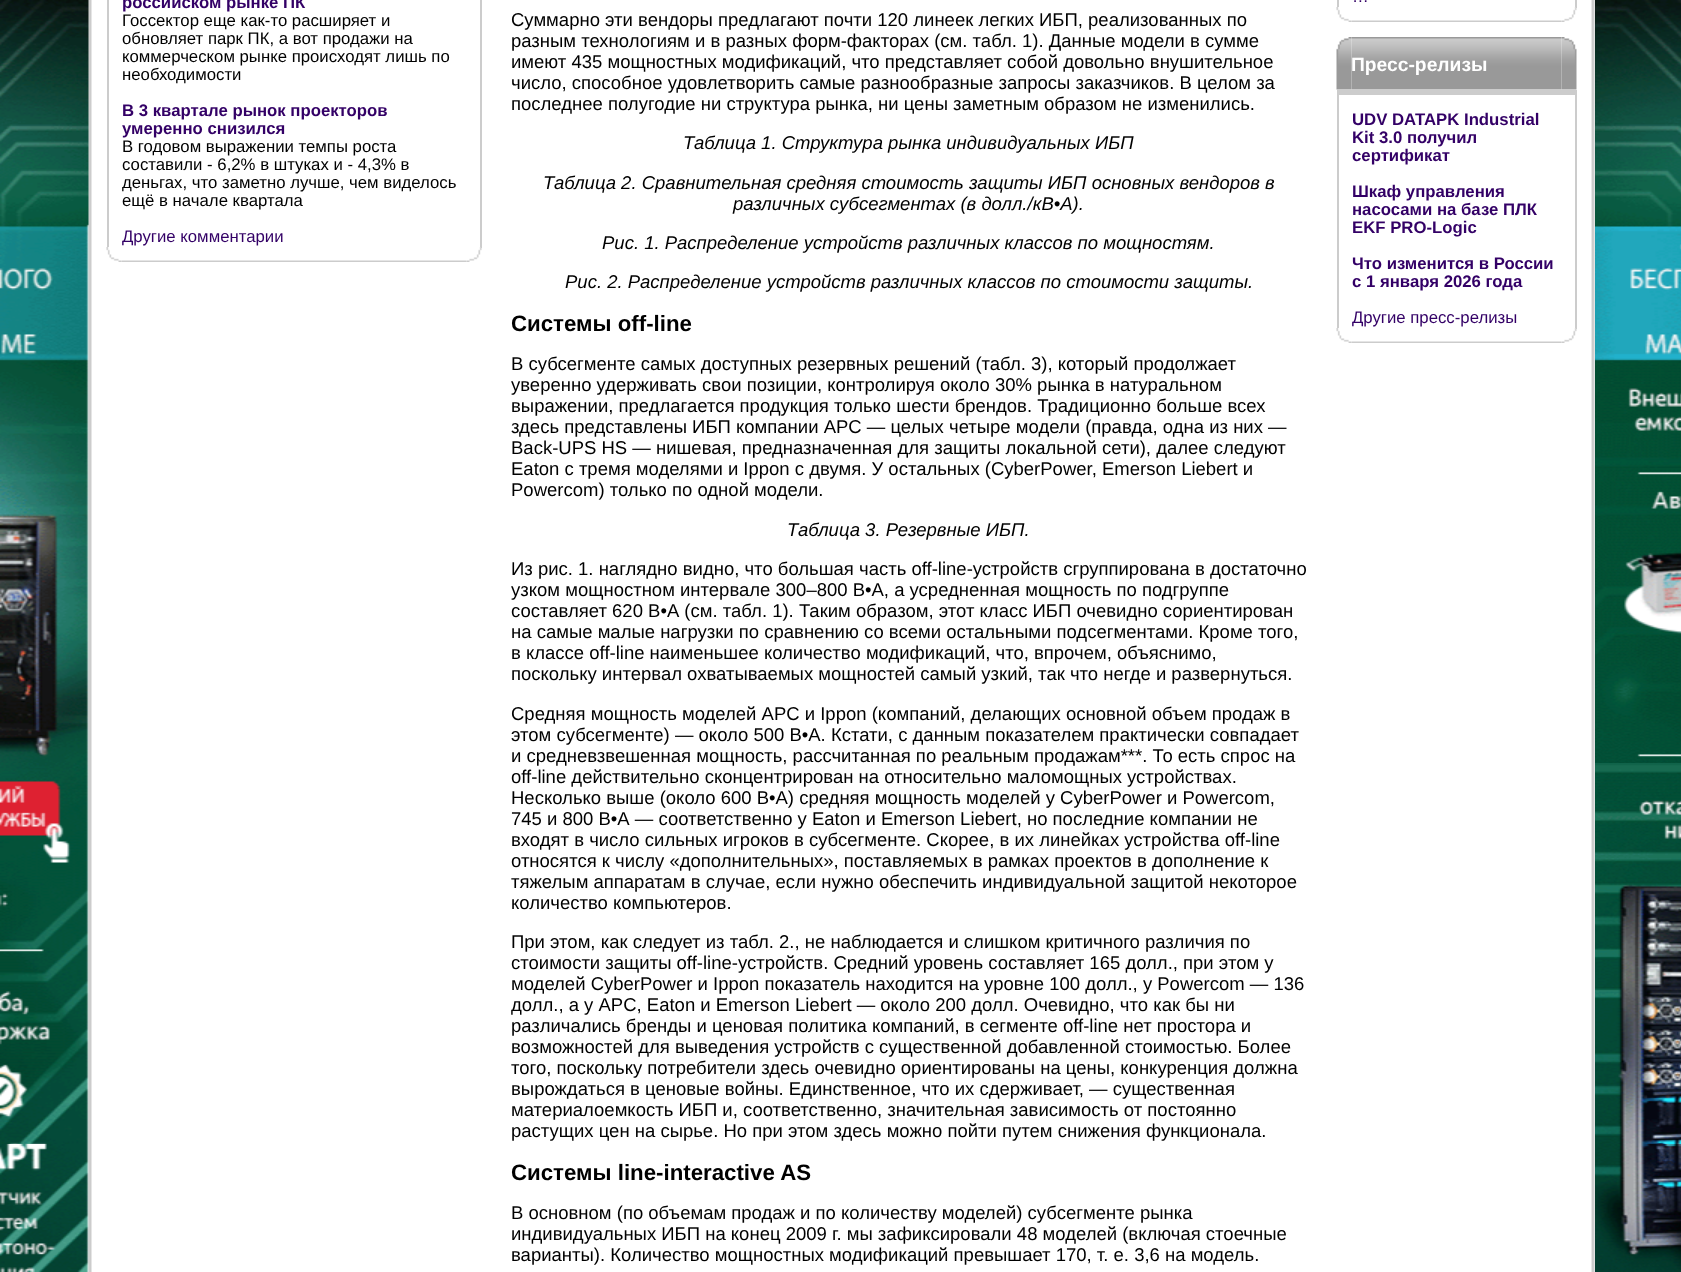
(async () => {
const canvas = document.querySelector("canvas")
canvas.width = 1681
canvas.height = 1272
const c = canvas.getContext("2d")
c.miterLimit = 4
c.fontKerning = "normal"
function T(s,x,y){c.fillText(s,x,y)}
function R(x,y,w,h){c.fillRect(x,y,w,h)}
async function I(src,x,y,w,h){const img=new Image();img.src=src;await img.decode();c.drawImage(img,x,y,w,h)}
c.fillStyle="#fff"
R(0,0,1681,1272)
await I("1.png",0,0,1681,1272)
c.fillStyle="#f3f3f3"
R(1594,0,1,1272)
await I("2.png",88,0,1507,1272)
c.fillStyle="#ccc"
R(480,0,2,248)
R(107,0,2,248)
c.font="bold 16.75px Liberation Sans"
c.fillStyle="#306"
T("российском рынке ПК",122,8)
c.font="16.75px Liberation Sans"
c.fillStyle="#000"
T("Госсектор еще как-то расширяет и",122,26)
T("обновляет парк ПК, а вот продажи на",122,44)
T("коммерческом рынке происходят лишь по",122,62)
T("необходимости",122,80)
c.font="bold 16.75px Liberation Sans"
c.fillStyle="#306"
T("В 3 квартале рынок проекторов",122,116)
T("умеренно снизился",122,134)
c.font="16.75px Liberation Sans"
c.fillStyle="#000"
T("В годовом выражении темпы роста",122,152)
T("составили - 6,2% в штуках и - 4,3% в",122,170)
T("деньгах, что заметно лучше, чем виделось",122,188)
T("ещё в начале квартала",122,206)
c.fillStyle="#306"
T("Другие комментарии",122,242)
await I("3.png",106,247,16,15)
await I("4.png",121,260,346,2)
await I("5.png",466,247,16,15)
c.font="18.5px Liberation Sans"
c.fillStyle="#000"
T("Суммарно эти вендоры предлагают почти 120 линеек легких ИБП, реализованных по",511,26)
T("разным технологиям и в разных форм-факторах (см. табл. 1). Данные модели в сумме",511,47)
T("имеют 435 мощностных модификаций, что представляет собой довольно внушительное",511,68)
T("число, способное удовлетворить самые разнообразные запросы заказчиков. В целом за",511,89)
T("последнее полугодие ни структура рынка, ни цены заметным образом не изменились.",511,110)
c.font="italic 18.5px Liberation Sans"
T("Таблица 1. Структура рынка индивидуальных ИБП",683,149)
T("Таблица 2. Сравнительная средняя стоимость защиты ИБП основных вендоров в",543,189)
T("различных субсегментах (в долл./кВ•А).",733,210)
T("Рис. 1. Распределение устройств различных классов по мощностям.",602,249)
T("Рис. 2. Распределение устройств различных классов по стоимости защиты.",565,288)
c.font="bold 22.25px Liberation Sans"
T("Системы off-line",511,331)
c.font="18.5px Liberation Sans"
T("В субсегменте самых доступных резервных решений (табл. 3), который продолжает",511,370)
T("уверенно удерживать свои позиции, контролируя около 30% рынка в натуральном",511,391)
T("выражении, предлагается продукция только шести брендов. Традиционно больше всех",511,412)
T("здесь представлены ИБП компании APC — целых четыре модели (правда, одна из них —",511,433)
T("Back-UPS HS — нишевая, предназначенная для защиты локальной сети), далее следуют",511,454)
T("Eaton с тремя моделями и Ippon с двумя. У остальных (CyberPower, Emerson Liebert и",511,475)
T("Powercom) только по одной модели.",511,496)
c.font="italic 18.5px Liberation Sans"
T("Таблица 3. Резервные ИБП.",787,536)
c.font="18.5px Liberation Sans"
T("Из рис. 1. наглядно видно, что большая часть off-line-устройств сгруппирована в достаточно",511,575)
T("узком мощностном интервале 300–800 В•А, а усредненная мощность по подгруппе",511,596)
T("составляет 620 В•А (см. табл. 1). Таким образом, этот класс ИБП очевидно сориентирован",511,617)
T("на самые малые нагрузки по сравнению со всеми остальными подсегментами. Кроме того,",511,638)
T("в классе off-line наименьшее количество модификаций, что, впрочем, объяснимо,",511,659)
T("поскольку интервал охватываемых мощностей самый узкий, так что негде и развернуться.",511,680)
T("Средняя мощность моделей APC и Ippon (компаний, делающих основной объем продаж в",511,720)
T("этом субсегменте) — около 500 В•А. Кстати, с данным показателем практически совпадает",511,741)
T("и средневзвешенная мощность, рассчитанная по реальным продажам***. То есть спрос на",511,762)
T("off-line действительно сконцентрирован на относительно маломощных устройствах.",511,783)
T("Несколько выше (около 600 В•А) средняя мощность моделей у CyberPower и Powercom,",511,804)
T("745 и 800 В•А — соответственно у Eaton и Emerson Liebert, но последние компании не",511,825)
T("входят в число сильных игроков в субсегменте. Скорее, в их линейках устройства off-line",511,846)
T("относятся к числу «дополнительных», поставляемых в рамках проектов в дополнение к",511,867)
T("тяжелым аппаратам в случае, если нужно обеспечить индивидуальной защитой некоторое",511,888)
T("количество компьютеров.",511,909)
T("При этом, как следует из табл. 2., не наблюдается и слишком критичного различия по",511,948)
T("стоимости защиты off-line-устройств. Средний уровень составляет 165 долл., при этом у",511,969)
T("моделей CyberPower и Ippon показатель находится на уровне 100 долл., у Powercom — 136",511,990)
T("долл., а у APC, Eaton и Emerson Liebert — около 200 долл. Очевидно, что как бы ни",511,1011)
T("различались бренды и ценовая политика компаний, в сегменте off-line нет простора и",511,1032)
T("возможностей для выведения устройств с существенной добавленной стоимостью. Более",511,1053)
T("того, поскольку потребители здесь очевидно ориентированы на цены, конкуренция должна",511,1074)
T("вырождаться в ценовые войны. Единственное, что их сдерживает, — существенная",511,1095)
T("материалоемкость ИБП и, соответственно, значительная зависимость от постоянно",511,1116)
T("растущих цен на сырье. Но при этом здесь можно пойти путем снижения функционала.",511,1137)
c.font="bold 22.25px Liberation Sans"
T("Системы line-interactive AS",511,1180)
c.font="18.5px Liberation Sans"
T("В основном (по объемам продаж и по количеству моделей) субсегменте рынка",511,1219)
T("индивидуальных ИБП на конец 2009 г. мы зафиксировали 48 моделей (включая стоечные",511,1240)
T("варианты). Количество мощностных модификаций превышает 170, т. е. 3,6 на модель.",511,1261)
c.fillStyle="#ccc"
R(1575,0,2,8)
R(1337,0,2,8)
c.font="16.75px Liberation Sans"
c.fillStyle="#306"
T("…",1352,2)
await I("6.png",1336,7,16,15)
await I("7.png",1351,20,211,2)
await I("5.png",1561,7,16,15)
await I("8.png",1336,37,16,53)
await I("9.png",1351,37,211,53)
c.font="bold 19.25px Liberation Sans"
c.fillStyle="#fff"
T("Пресс-релизы",1351,71)
await I("10.png",1561,37,16,53)
c.fillStyle="#ccc"
R(1337,90,240,5)
R(1575,90,2,239)
R(1337,90,2,239)
c.font="bold 16.75px Liberation Sans"
c.fillStyle="#306"
T("UDV DATAPK Industrial",1352,125)
T("Kit 3.0 получил",1352,143)
T("сертификат",1352,161)
T("Шкаф управления",1352,197)
T("насосами на базе ПЛК",1352,215)
T("EKF PRO-Logic",1352,233)
T("Что изменится в России",1352,269)
T("с 1 января 2026 года",1352,287)
c.font="16.75px Liberation Sans"
T("Другие пресс-релизы",1352,323)
await I("6.png",1336,328,16,15)
await I("7.png",1351,341,211,2)
await I("5.png",1561,328,16,15)
})()
